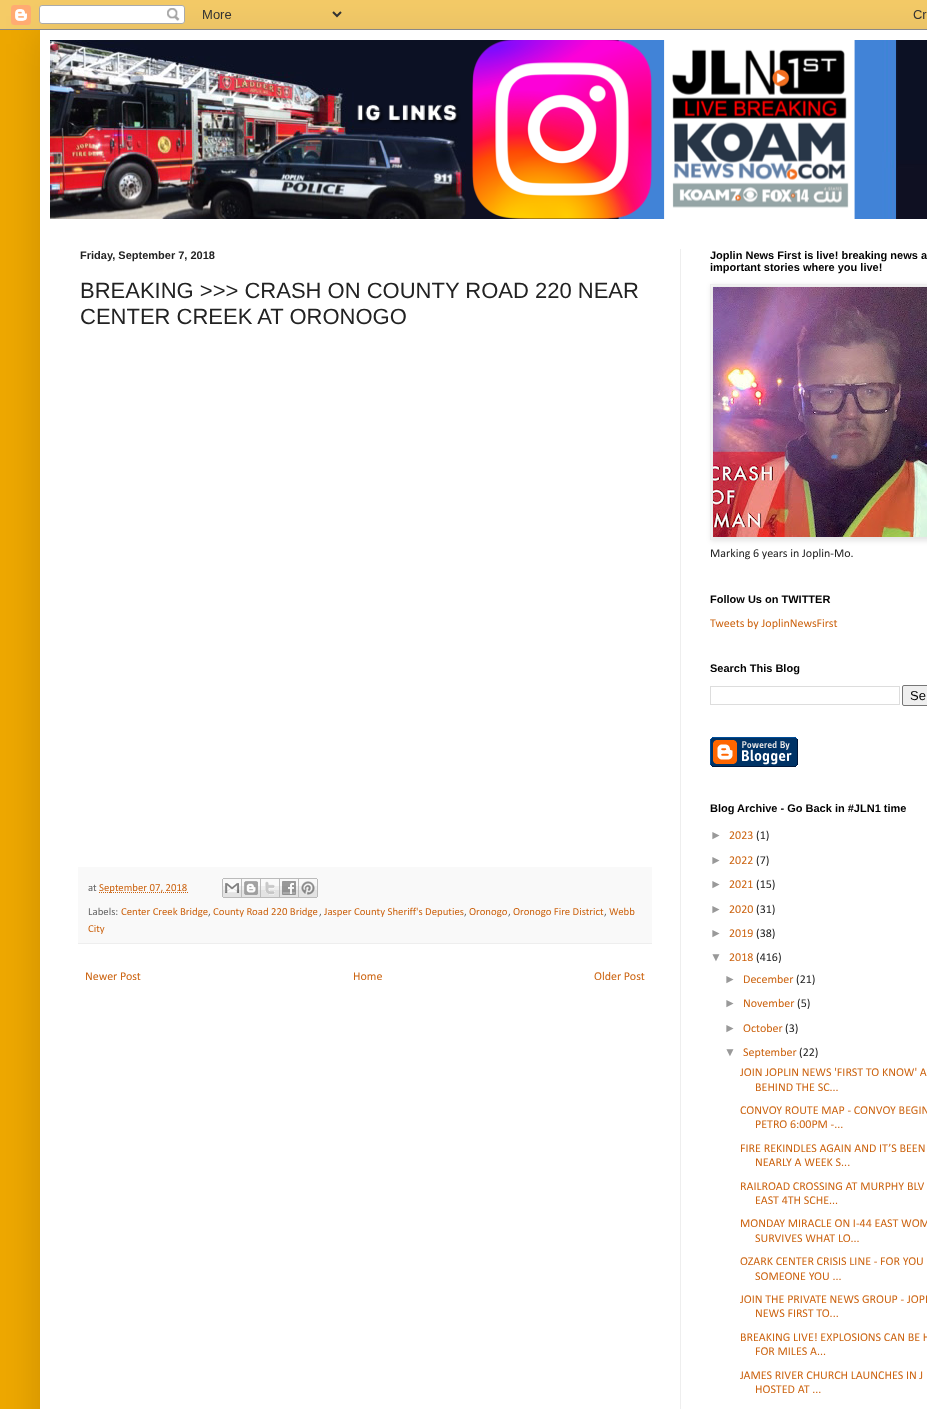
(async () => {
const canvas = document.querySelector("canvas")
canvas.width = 927
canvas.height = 1409
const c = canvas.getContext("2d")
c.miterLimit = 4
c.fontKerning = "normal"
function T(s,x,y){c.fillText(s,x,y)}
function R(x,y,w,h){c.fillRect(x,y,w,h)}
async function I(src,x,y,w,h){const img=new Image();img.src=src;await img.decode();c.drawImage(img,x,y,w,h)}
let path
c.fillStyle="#eea800"
R(0,0,927,1409)
c.fillStyle="#00000026"
c.filter="blur(20px)"
c.beginPath()
c.rect(40,30,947,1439)
c.fill()
c.filter="none"
await I("1.png",0,0,927,30)
c.fillStyle="#fff"
R(40,30,887,1379)
await I("2.png",50,40,877,179)
c.fillStyle="#eee"
R(680,249,1,1160)
c.font="bold 11px Liberation Sans"
c.fillStyle="#222"
T("Friday, September 7, 2018",80,259)
c.font="22px Liberation Sans"
T("BREAKING >>> CRASH ON COUNTY ROAD 220 NEAR",80,298)
T("CENTER CREEK AT ORONOGO",80,324)
c.fillStyle="#f9f9f9"
R(78,867,574,76)
c.fillStyle="#eee"
R(78,943,574,1)
c.font="10.75px Calibri"
c.fillStyle="#666"
T("at",88,891)
path = new Path2D("M99 892.5h89")
c.strokeStyle="#cc6411"
c.setLineDash([1,1])
c.stroke(path)
c.fillStyle="#cc6411"
T("September 07, 2018",99,891)
await I("3.png",222,878,20,20)
await I("4.png",242,878,19,20)
await I("5.png",261,878,19,20)
await I("6.png",280,878,19,20)
await I("7.png",299,878,19,20)
c.fillStyle="#666"
T("Labels:",88,915)
c.fillStyle="#cc6411"
T("Center Creek Bridge",121,915)
c.fillStyle="#666"
T(",",208,915)
c.fillStyle="#cc6411"
T("County Road 220 Bridge",213,915)
c.fillStyle="#666"
T(",",319,915)
c.fillStyle="#cc6411"
T("Jasper County Sheriff's Deputies",324,915)
c.fillStyle="#666"
T(",",464,915)
c.fillStyle="#cc6411"
T("Oronogo",469,915)
c.fillStyle="#666"
T(",",508,915)
c.fillStyle="#cc6411"
T("Oronogo Fire District",513,915)
c.fillStyle="#666"
T(",",604,915)
c.fillStyle="#cc6411"
T("Webb",609,915)
T("City",88,932)
c.font="12px Calibri"
T("Newer Post",85,980)
T("Home",353,980)
T("Older Post",594,980)
c.font="bold 11px Liberation Sans"
c.fillStyle="#000"
T("Joplin News First is live! breaking news a",710,259)
T("important stories where you live!",710,271)
c.fillStyle="#0000001a"
c.filter="blur(2.5px)"
c.beginPath()
c.rect(711,285,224,256)
c.fill()
c.filter="none"
c.strokeStyle="#eee"
c.setLineDash([])
c.strokeRect(710.5,284.5,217,255)
await I("8.png",713,287,214,250)
c.font="12px Calibri"
c.fillStyle="#222"
T("Marking 6 years in Joplin-Mo.",710,557)
c.font="bold 11px Liberation Sans"
c.fillStyle="#000"
T("Follow Us on TWITTER",710,603)
c.font="12px Calibri"
c.fillStyle="#cc6411"
T("Tweets by JoplinNewsFirst",710,627)
c.font="bold 11px Liberation Sans"
c.fillStyle="#000"
T("Search This Blog",710,672)
c.strokeStyle="#ddd"
c.strokeRect(710.5,686.5,189,18)
c.fillStyle="#efefef"
c.beginPath()
c.roundRect(902.5,685.5,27,20,1.5)
c.fill()
c.strokeStyle="#767676"
c.stroke()
c.font="13px Liberation Sans"
c.fillStyle="#000"
T("Se",910,700)
await I("9.png",710,737,88,30)
c.font="bold 11px Liberation Sans"
T("Blog Archive - Go Back in #JLN1 time",710,812)
c.font="12px Liberation Sans"
c.fillStyle="#999"
T("►",710,839)
c.font="12px Calibri"
c.fillStyle="#cc6411"
T("2023",729,839)
c.fillStyle="#222"
T("(1)",756,839)
c.font="12px Liberation Sans"
c.fillStyle="#999"
T("►",710,864)
c.font="12px Calibri"
c.fillStyle="#cc6411"
T("2022",729,864)
c.fillStyle="#222"
T("(7)",756,864)
c.font="12px Liberation Sans"
c.fillStyle="#999"
T("►",710,888)
c.font="12px Calibri"
c.fillStyle="#cc6411"
T("2021",729,888)
c.fillStyle="#222"
T("(15)",756,888)
c.font="12px Liberation Sans"
c.fillStyle="#999"
T("►",710,913)
c.font="12px Calibri"
c.fillStyle="#cc6411"
T("2020",729,913)
c.fillStyle="#222"
T("(31)",756,913)
c.font="12px Liberation Sans"
c.fillStyle="#999"
T("►",710,937)
c.font="12px Calibri"
c.fillStyle="#cc6411"
T("2019",729,937)
c.fillStyle="#222"
T("(38)",756,937)
c.font="12px Liberation Sans"
c.fillStyle="#999"
T("▼",710,961)
c.font="12px Calibri"
c.fillStyle="#cc6411"
T("2018",729,961)
c.fillStyle="#222"
T("(416)",756,961)
c.font="12px Liberation Sans"
c.fillStyle="#999"
T("►",724,983)
c.font="12px Calibri"
c.fillStyle="#cc6411"
T("December",743,983)
c.fillStyle="#222"
T("(21)",796,983)
c.font="12px Liberation Sans"
c.fillStyle="#999"
T("►",724,1007)
c.font="12px Calibri"
c.fillStyle="#cc6411"
T("November",743,1007)
c.fillStyle="#222"
T("(5)",797,1007)
c.font="12px Liberation Sans"
c.fillStyle="#999"
T("►",724,1032)
c.font="12px Calibri"
c.fillStyle="#cc6411"
T("October",743,1032)
c.fillStyle="#222"
T("(3)",785,1032)
c.font="12px Liberation Sans"
c.fillStyle="#999"
T("▼",724,1056)
c.font="12px Calibri"
c.fillStyle="#cc6411"
T("September",743,1056)
c.fillStyle="#222"
T("(22)",799,1056)
c.fillStyle="#cc6411"
T("JOIN JOPLIN NEWS 'FIRST TO KNOW' A",740,1076)
T("BEHIND THE SC...",755,1091)
T("CONVOY ROUTE MAP - CONVOY BEGIN",740,1114)
T("PETRO 6:00PM -...",755,1128)
T("FIRE REKINDLES AGAIN AND IT’S BEEN",740,1152)
T("NEARLY A WEEK S...",755,1166)
T("RAILROAD CROSSING AT MURPHY BLV",740,1190)
T("EAST 4TH SCHE...",755,1204)
T("MONDAY MIRACLE ON I-44 EAST WOM",740,1227)
T("SURVIVES WHAT LO...",755,1242)
T("OZARK CENTER CRISIS LINE - FOR YOU",740,1265)
T("SOMEONE YOU ...",755,1280)
T("JOIN THE PRIVATE NEWS GROUP - JOPL",740,1303)
T("NEWS FIRST TO...",755,1317)
T("BREAKING LIVE! EXPLOSIONS CAN BE H",740,1341)
T("FOR MILES A...",755,1355)
T("JAMES RIVER CHURCH LAUNCHES IN J",740,1379)
T("HOSTED AT ...",755,1393)
})()
